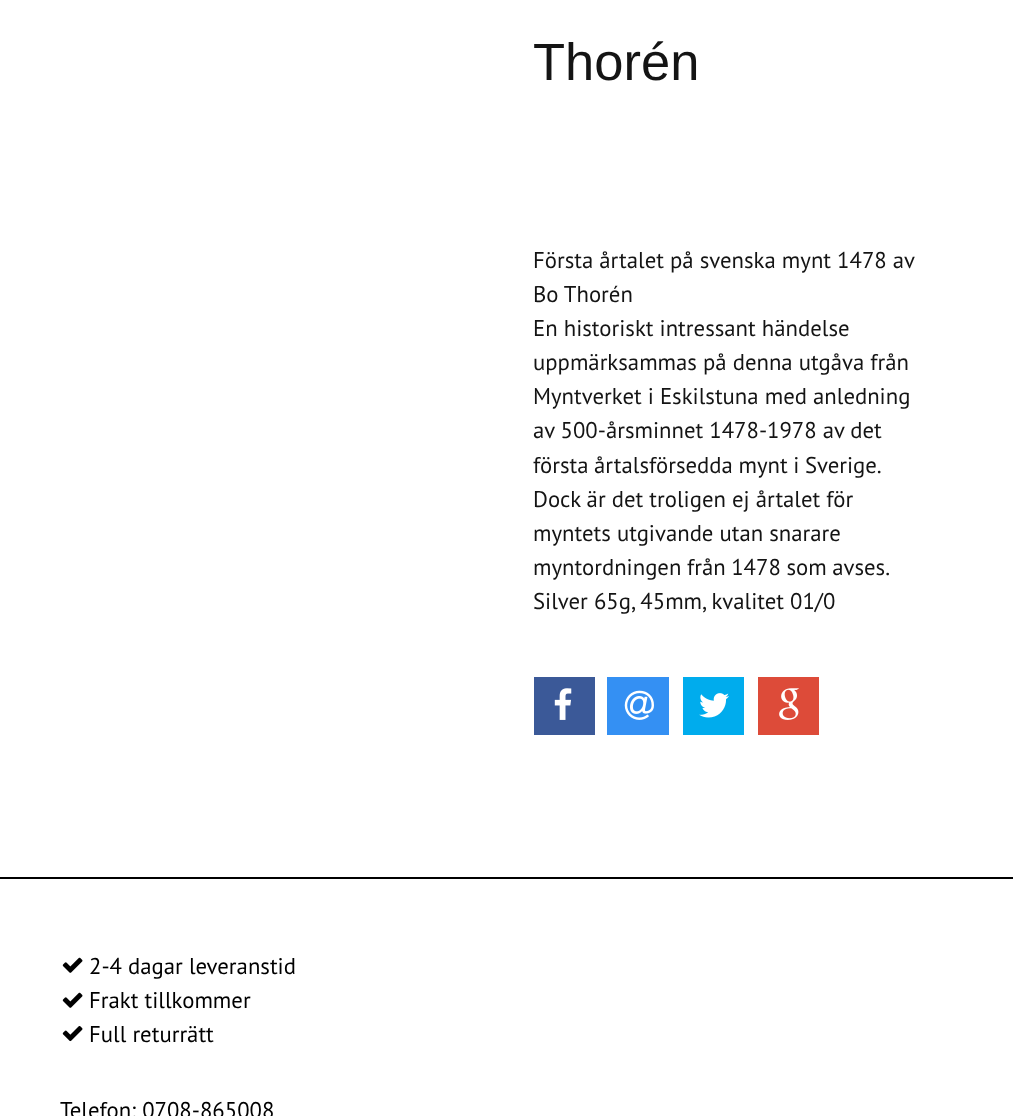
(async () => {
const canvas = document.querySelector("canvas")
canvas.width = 1013
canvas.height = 1116
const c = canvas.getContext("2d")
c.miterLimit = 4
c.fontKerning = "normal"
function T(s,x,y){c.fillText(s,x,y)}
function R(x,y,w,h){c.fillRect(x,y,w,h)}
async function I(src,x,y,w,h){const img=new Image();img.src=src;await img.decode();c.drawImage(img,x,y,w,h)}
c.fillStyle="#fff"
R(0,0,1013,1116)
c.font="52.5px Liberation Sans"
c.fillStyle="#141414"
T("Thorén",533,80)
c.font="22.75px PT Sans"
T("Första årtalet på svenska mynt 1478 av",533,268)
T("Bo Thorén",533,302)
T("En historiskt intressant händelse",533,336)
T("uppmärksammas på denna utgåva från",533,370)
T("Myntverket i Eskilstuna med anledning",533,404)
T("av 500-årsminnet 1478-1978 av det",533,438)
c.wordSpacing="-0.5px"
T("första årtalsförsedda mynt i Sverige.",533,473)
c.wordSpacing="0px"
T("Dock är det troligen ej årtalet för",533,507)
T("myntets utgivande utan snarare",533,541)
c.wordSpacing="-0.5px"
T("myntordningen från 1478 som avses.",533,575)
c.wordSpacing="0px"
T("Silver 65g, 45mm, kvalitet 01/0",533,609)
c.fillStyle="#3b5998"
R(534,677,61,58)
await I("1.png",554,688,18,32)
c.fillStyle="#3490f3"
R(607,677,62,58)
await I("2.png",624,690,30,30)
c.fillStyle="#00aced"
R(683,677,61,58)
await I("3.png",699,693,30,25)
c.fillStyle="#dd4b39"
R(758,677,61,58)
await I("4.png",779,688,20,32)
c.fillStyle="#000"
R(0,877,1013,2)
await I("5.png",62,957,21,16)
T("2-4 dagar leveranstid",89,974)
await I("5.png",62,992,21,16)
T("Frakt tillkommer",89,1008)
await I("6.png",62,1026,21,16)
T("Full returrätt",89,1042)
T("Telefon: 0708-865008",60,1118)
})()
